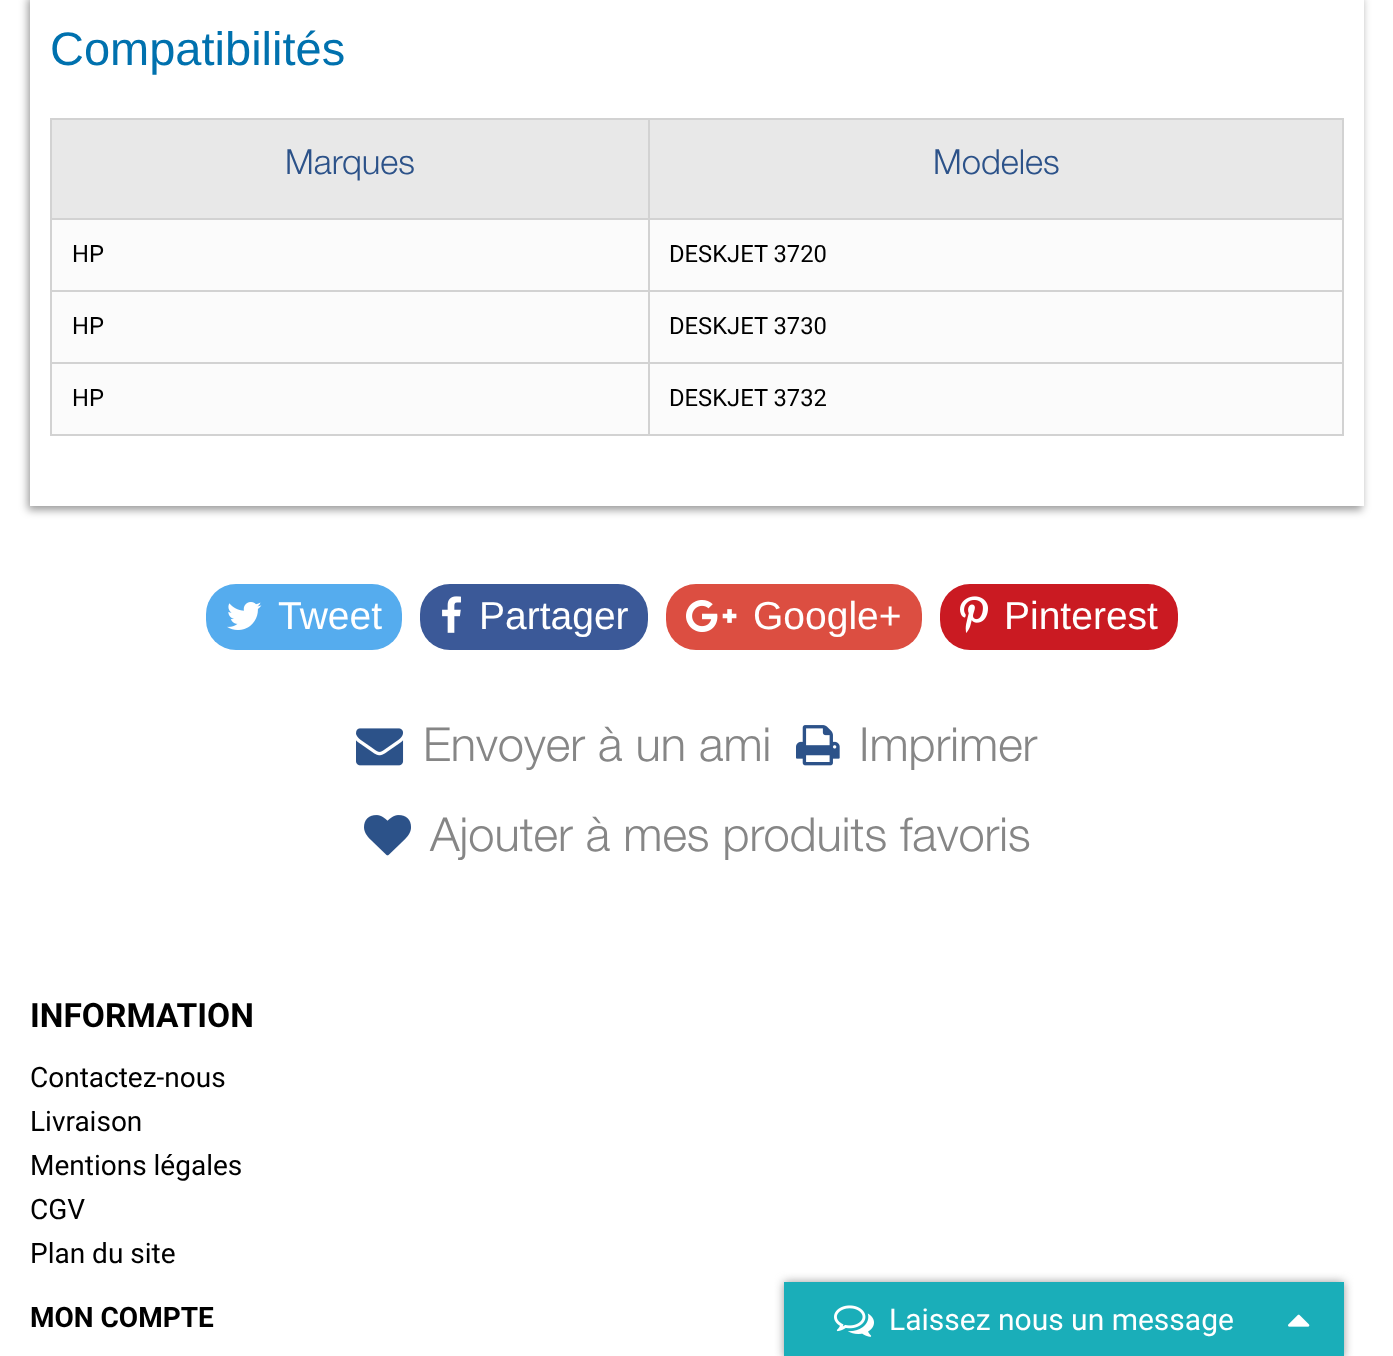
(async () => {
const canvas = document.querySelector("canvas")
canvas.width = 1393
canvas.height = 1356
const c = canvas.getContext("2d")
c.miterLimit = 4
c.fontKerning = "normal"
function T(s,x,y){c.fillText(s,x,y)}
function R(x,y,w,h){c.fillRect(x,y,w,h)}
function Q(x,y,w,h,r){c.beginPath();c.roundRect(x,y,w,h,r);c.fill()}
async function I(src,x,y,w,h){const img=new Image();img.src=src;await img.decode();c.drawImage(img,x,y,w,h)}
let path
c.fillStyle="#fff"
R(0,0,1393,1356)
c.save()
path = new Path2D("M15 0h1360v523h-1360zm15-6h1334v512h-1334z")
c.clip(path,"evenodd")
c.fillStyle="#00000066"
c.filter="blur(4px)"
c.beginPath()
c.rect(28,-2,1334,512)
c.fill()
c.filter="none"
c.restore()
c.font="47px Liberation Sans"
c.fillStyle="#0071ae"
T("Compatibilités",50,65)
c.fillStyle="#fbfbfb"
R(52,220,1290,214)
c.fillStyle="#d2d2d2"
R(50,118,1294,2)
R(1342,118,2,318)
R(50,434,1294,2)
R(50,118,2,318)
c.fillStyle="#e8e8e8"
R(52,120,596,98)
c.font="300 34.5px Helvetica Neue"
c.fillStyle="#2c5289"
T("Marques",285,174)
c.fillStyle="#e8e8e8"
R(650,120,692,98)
c.fillStyle="#d2d2d2"
R(648,218,696,2)
R(648,290,696,2)
R(648,362,696,2)
R(648,362,2,74)
R(50,362,600,2)
R(648,290,2,74)
R(50,290,600,2)
R(648,218,2,74)
R(50,218,600,2)
R(648,118,2,102)
c.fillStyle="#2c5289"
T("Modeles",933,174)
c.font="23.75px Roboto"
c.fillStyle="#000"
T("HP",72,262)
T("DESKJET 3720",669,262)
T("HP",72,334)
T("DESKJET 3730",669,334)
T("HP",72,406)
T("DESKJET 3732",669,406)
c.fillStyle="#55acee"
Q(206,584,196,66,30)
await I("1.png",227,602,35,28)
c.font="39px Liberation Sans"
c.fillStyle="#fff"
T("Tweet",278,629)
c.fillStyle="#3b5998"
Q(420,584,228,66,30)
await I("2.png",442,596,19,37)
c.fillStyle="#fff"
T("Partager",479,629)
c.fillStyle="#dc4e41"
Q(666,584,256,66,30)
await I("3.png",686,600,51,32)
c.fillStyle="#fff"
T("Google+",753,629)
c.fillStyle="#ca1a22"
Q(940,584,238,66,30)
await I("4.png",960,596,28,37)
c.fillStyle="#fff"
T("Pinterest",1004,629)
await I("5.png",356,728,48,38)
c.font="300 47px Helvetica Neue"
c.fillStyle="#868686"
T("Envoyer à un ami",423,761)
await I("6.png",796,725,44,41)
T("Imprimer",859,761)
await I("7.png",364,815,47,41)
T("Ajouter à mes produits favoris",430,851)
c.font="bold 33.5px Roboto"
c.fillStyle="#000"
T("INFORMATION",30,1027)
c.font="28px Roboto"
T("Contactez-nous",30,1087)
T("Livraison",30,1131)
T("Mentions légales",30,1175)
T("CGV",30,1219)
T("Plan du site",30,1263)
c.font="bold 28px Roboto"
T("MON COMPTE",30,1327)
c.fillStyle="#999"
c.filter="blur(5px)"
c.beginPath()
c.rect(784,1282,560,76)
c.fill()
c.filter="none"
c.fillStyle="#1aaeb9"
R(784,1282,560,74)
await I("8.png",834,1305,40,32)
c.font="30px Roboto"
c.fillStyle="#fff"
T("Laissez nous un message",889,1330)
await I("9.png",1288,1314,22,13)
})()
